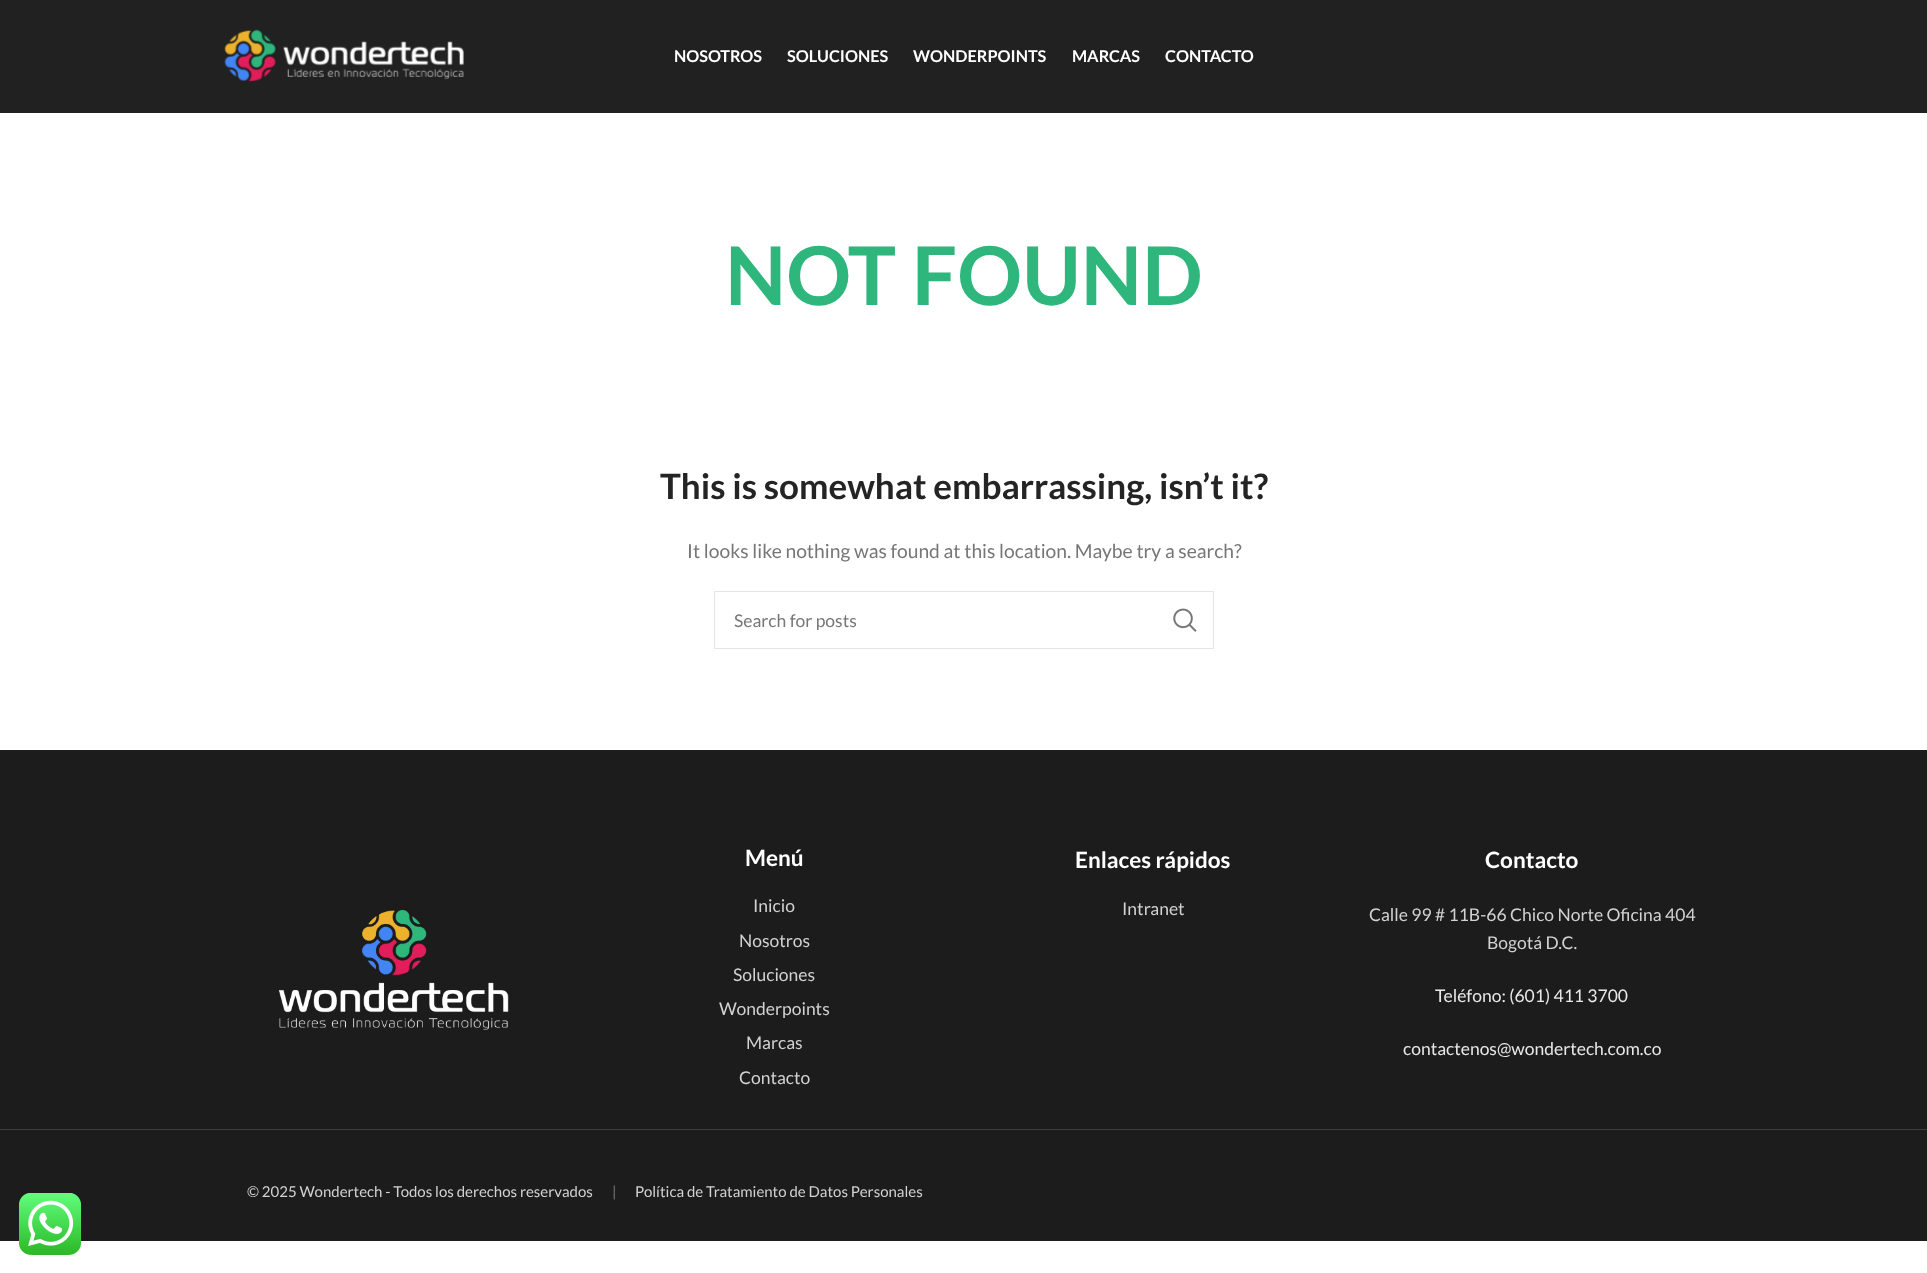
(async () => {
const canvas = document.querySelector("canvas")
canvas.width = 1927
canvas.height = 1273
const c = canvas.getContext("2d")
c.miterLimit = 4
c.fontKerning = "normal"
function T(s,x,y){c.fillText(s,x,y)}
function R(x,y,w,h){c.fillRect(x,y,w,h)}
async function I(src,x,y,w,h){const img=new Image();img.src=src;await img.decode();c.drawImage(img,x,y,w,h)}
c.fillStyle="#fff"
R(0,0,1927,1273)
c.fillStyle="#212121"
R(0,0,1927,113)
await I("1.png",224,29,240,53)
c.font="bold 16.25px Lato"
c.fillStyle="#fff"
T("NOSOTROS",674,62)
T("SOLUCIONES",787,62)
T("WONDERPOINTS",913,62)
T("MARCAS",1072,62)
T("CONTACTO",1165,62)
c.font="bold 81px Lato"
c.fillStyle="#2fb67c"
T("NOT FOUND",725,305)
c.font="bold 35px Lato"
c.fillStyle="#242424"
T("This is somewhat embarrassing, isn’t it?",660,499)
c.font="19.25px Lato"
c.fillStyle="#767676"
T("It looks like nothing was found at this location. Maybe try a search?",687,558)
c.strokeStyle="#e6e6e6"
c.strokeRect(714.5,591.5,499,57)
c.font="17.5px Lato"
T("Search for posts",734,627)
await I("2.png",1173,608,24,24)
c.fillStyle="#1c1c1c"
R(0,750,1927,491)
await I("3.png",278,910,231,120)
c.font="bold 22.5px Lato"
c.fillStyle="#fff"
T("Menú",745,866)
c.font="17.5px Lato"
c.fillStyle="#d2d2d2"
T("Inicio",753,912)
T("Nosotros",739,947)
T("Soluciones",733,981)
T("Wonderpoints",719,1015)
T("Marcas",746,1049)
T("Contacto",739,1084)
c.font="bold 22.5px Lato"
c.fillStyle="#fff"
T("Enlaces rápidos",1075,868)
c.font="17.5px Lato"
c.fillStyle="#d2d2d2"
T("Intranet",1122,915)
c.font="bold 22.5px Lato"
c.fillStyle="#fff"
T("Contacto",1485,868)
c.font="17.5px Lato"
c.fillStyle="#d2d2d2"
T("Calle 99 # 11B-66 Chico Norte Oficina 404",1369,921)
T("Bogotá D.C.",1487,949)
c.fillStyle="#e8e8e8"
T("Teléfono: (601) 411 3700",1435,1002)
T("contactenos@wondertech.com.co",1403,1055)
c.fillStyle="#3e3e3e"
R(0,1129,1927,1)
c.font="15px Lato"
c.fillStyle="#d2d2d2"
T("© 2025 Wondertech - Todos los derechos reservados",247,1197)
c.fillStyle="#767676"
T("|",612,1197)
c.fillStyle="#d2d2d2"
T("Política de Tratamiento de Datos Personales",635,1197)
await I("4.png",19,1193,62,62)
})()
